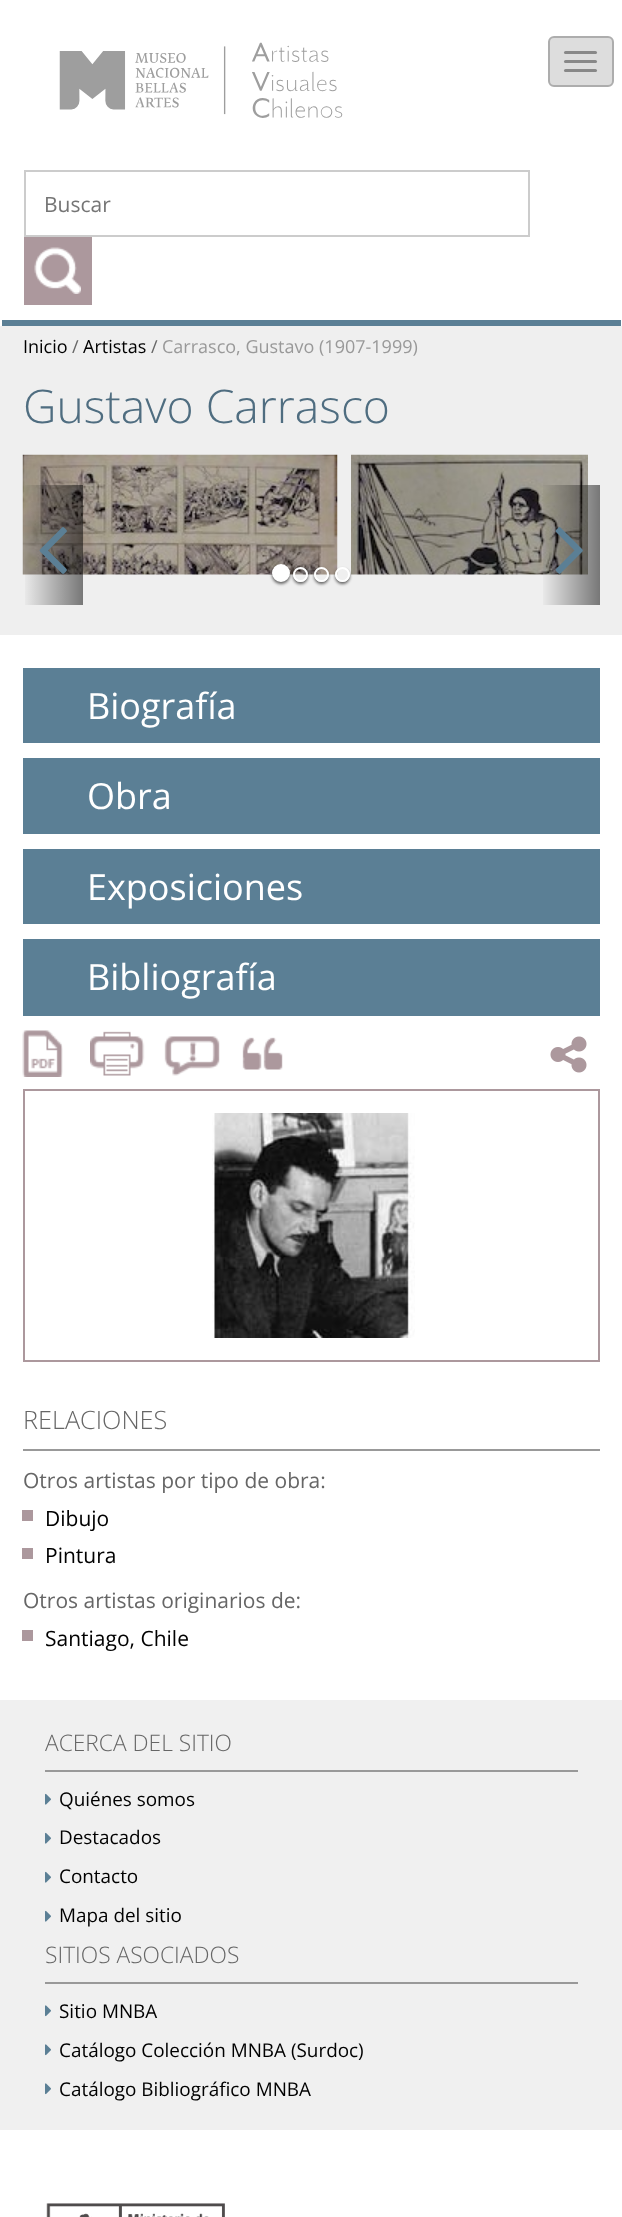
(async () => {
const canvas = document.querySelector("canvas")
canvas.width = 622
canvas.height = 2217
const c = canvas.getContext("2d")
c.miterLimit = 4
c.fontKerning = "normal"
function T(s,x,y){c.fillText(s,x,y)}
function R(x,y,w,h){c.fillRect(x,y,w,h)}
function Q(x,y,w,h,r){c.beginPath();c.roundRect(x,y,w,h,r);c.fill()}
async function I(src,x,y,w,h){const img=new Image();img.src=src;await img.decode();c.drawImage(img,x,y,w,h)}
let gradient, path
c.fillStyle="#fff"
R(0,0,622,2217)
c.fillStyle="#5b7f95"
R(2,320,619,6)
c.fillStyle="#ddd"
c.beginPath()
c.roundRect(549,37,64,49,5)
c.fill()
c.strokeStyle="#adadad"
c.lineWidth=2
c.stroke()
c.fillStyle="#888"
Q(564,51,33,3,1.5)
Q(564,60,33,3,1.5)
Q(564,69,33,3,1.5)
await I("1.png",59,42,284,76)
c.strokeStyle="#ccc"
c.strokeRect(25,171,504,65)
c.font="21px Open Sans"
c.fillStyle="#757575"
T("Buscar",44,212)
c.fillStyle="#ac989d"
R(24,237,68,68)
await I("2.png",34,247,47,47)
c.fillStyle="#efefef"
R(0,326,622,309)
c.font="18px Open Sans"
c.fillStyle="#000"
T("Inicio",23,353)
c.fillStyle="#666"
T("/",72,353)
c.fillStyle="#000"
T("Artistas",83,353)
c.fillStyle="#666"
T("/",151,353)
c.fillStyle="#999"
T("Carrasco, Gustavo (1907-1999)",162,353)
c.font="300 46.25px Open Sans"
c.fillStyle="#4f6d80"
T("Gustavo Carrasco",23,423)
await I("3.png",22,454,316,121)
await I("4.png",351,454,237,121)
gradient = c.createLinearGradient(22,545,83,545)
gradient.addColorStop(0,"#00000000")
gradient.addColorStop(1,"#00000080")
c.fillStyle = gradient
R(25,485,58,120)
await I("5.png",39,527,28,47)
c.fillStyle="#00000099"
c.filter="blur(1.5px)"
c.beginPath()
c.roundRect(272,566,18,18,9)
c.fill()
c.filter="none"
c.fillStyle="#fff"
c.beginPath()
c.arc(281,573,8,0,7)
c.fill()
c.strokeStyle="#fff"
c.stroke()
c.save()
path = new Path2D("M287 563h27v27h-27zm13.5 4c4 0 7.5 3.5 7.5 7.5c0 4-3.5 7.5-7.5 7.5c-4 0-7.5-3.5-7.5-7.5c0-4 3.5-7.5 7.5-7.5z")
c.clip(path,"evenodd")
c.fillStyle="#00000099"
c.filter="blur(1.5px)"
c.beginPath()
c.roundRect(293,569,15,15,7.5)
c.fill()
c.filter="none"
c.restore()
c.beginPath()
c.arc(300.5,574.5,6.5,0,7)
c.stroke()
c.save()
path = new Path2D("M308 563h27v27h-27zm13.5 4c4 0 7.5 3.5 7.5 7.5c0 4-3.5 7.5-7.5 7.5c-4 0-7.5-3.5-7.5-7.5c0-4 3.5-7.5 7.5-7.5z")
c.clip(path,"evenodd")
c.fillStyle="#00000099"
c.filter="blur(1.5px)"
c.beginPath()
c.roundRect(314,569,15,15,7.5)
c.fill()
c.filter="none"
c.restore()
c.beginPath()
c.arc(321.5,574.5,6.5,0,7)
c.stroke()
c.save()
path = new Path2D("M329 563h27v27h-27zm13.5 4c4 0 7.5 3.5 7.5 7.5c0 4-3.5 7.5-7.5 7.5c-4 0-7.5-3.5-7.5-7.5c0-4 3.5-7.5 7.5-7.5z")
c.clip(path,"evenodd")
c.fillStyle="#00000099"
c.filter="blur(1.5px)"
c.beginPath()
c.roundRect(335,569,15,15,7.5)
c.fill()
c.filter="none"
c.restore()
c.beginPath()
c.arc(342.5,574.5,6.5,0,7)
c.stroke()
gradient = c.createLinearGradient(540,545,600,545)
gradient.addColorStop(0,"#00000000")
gradient.addColorStop(1,"#00000080")
c.fillStyle = gradient
R(543,485,57,120)
await I("6.png",555,527,28,47)
c.fillStyle="#5b7f95"
R(23,668,577,75)
c.font="36px Open Sans"
c.fillStyle="#fff"
T("Biografía",87,719)
c.fillStyle="#5b7f95"
R(23,758,577,76)
c.fillStyle="#fff"
T("Obra",87,809)
c.fillStyle="#5b7f95"
R(23,849,577,75)
c.fillStyle="#fff"
T("Exposiciones",87,900)
c.fillStyle="#5b7f95"
R(23,939,577,77)
c.fillStyle="#fff"
T("Bibliografía",87,990)
await I("7.png",22,1030,41,47)
await I("8.png",90,1031,55,45)
await I("9.png",164,1036,56,40)
await I("10.png",242,1037,41,33)
await I("11.png",550,1036,37,37)
c.strokeStyle="#ac989d"
c.strokeRect(24,1090,575,271)
await I("12.png",212,1113,203,225)
c.fillStyle="#999"
R(23,1449,577,2)
c.font="300 25.25px Open Sans"
c.fillStyle="#666"
T("RELACIONES",23,1429)
c.font="21px Open Sans"
T("Otros artistas por tipo de obra:",23,1488)
c.fillStyle="#ac989d"
R(22,1510,11,11)
c.fillStyle="#000"
T("Dibujo",45,1526)
c.fillStyle="#ac989d"
R(22,1548,11,11)
c.fillStyle="#000"
T("Pintura",45,1563)
c.fillStyle="#666"
T("Otros artistas originarios de:",23,1608)
c.fillStyle="#ac989d"
R(22,1630,11,11)
c.fillStyle="#000"
T("Santiago, Chile",45,1646)
c.fillStyle="#f0f0f0"
R(0,1700,622,430)
c.fillStyle="#999"
R(45,1770,533,2)
c.font="300 22.75px Open Sans"
c.fillStyle="#666"
T("ACERCA DEL SITIO",45,1751)
await I("13.png",45,1793,6,12)
c.font="18.9px Open Sans"
c.fillStyle="#000"
T("Quiénes somos",59,1806)
await I("13.png",45,1832,6,12)
T("Destacados",59,1844)
await I("13.png",45,1871,6,12)
T("Contacto",59,1883)
await I("13.png",45,1910,6,12)
T("Mapa del sitio",59,1922)
c.fillStyle="#999"
R(45,1982,533,2)
c.font="300 22.75px Open Sans"
c.fillStyle="#666"
T("SITIOS ASOCIADOS",45,1963)
await I("14.png",45,2005,6,12)
c.font="18.9px Open Sans"
c.fillStyle="#000"
T("Sitio MNBA",59,2018)
await I("14.png",45,2044,6,12)
T("Catálogo Colección MNBA (Surdoc)",59,2057)
await I("14.png",45,2083,6,12)
T("Catálogo Bibliográfico MNBA",59,2096)
await I("15.png",46,2203,179,14)
})()
